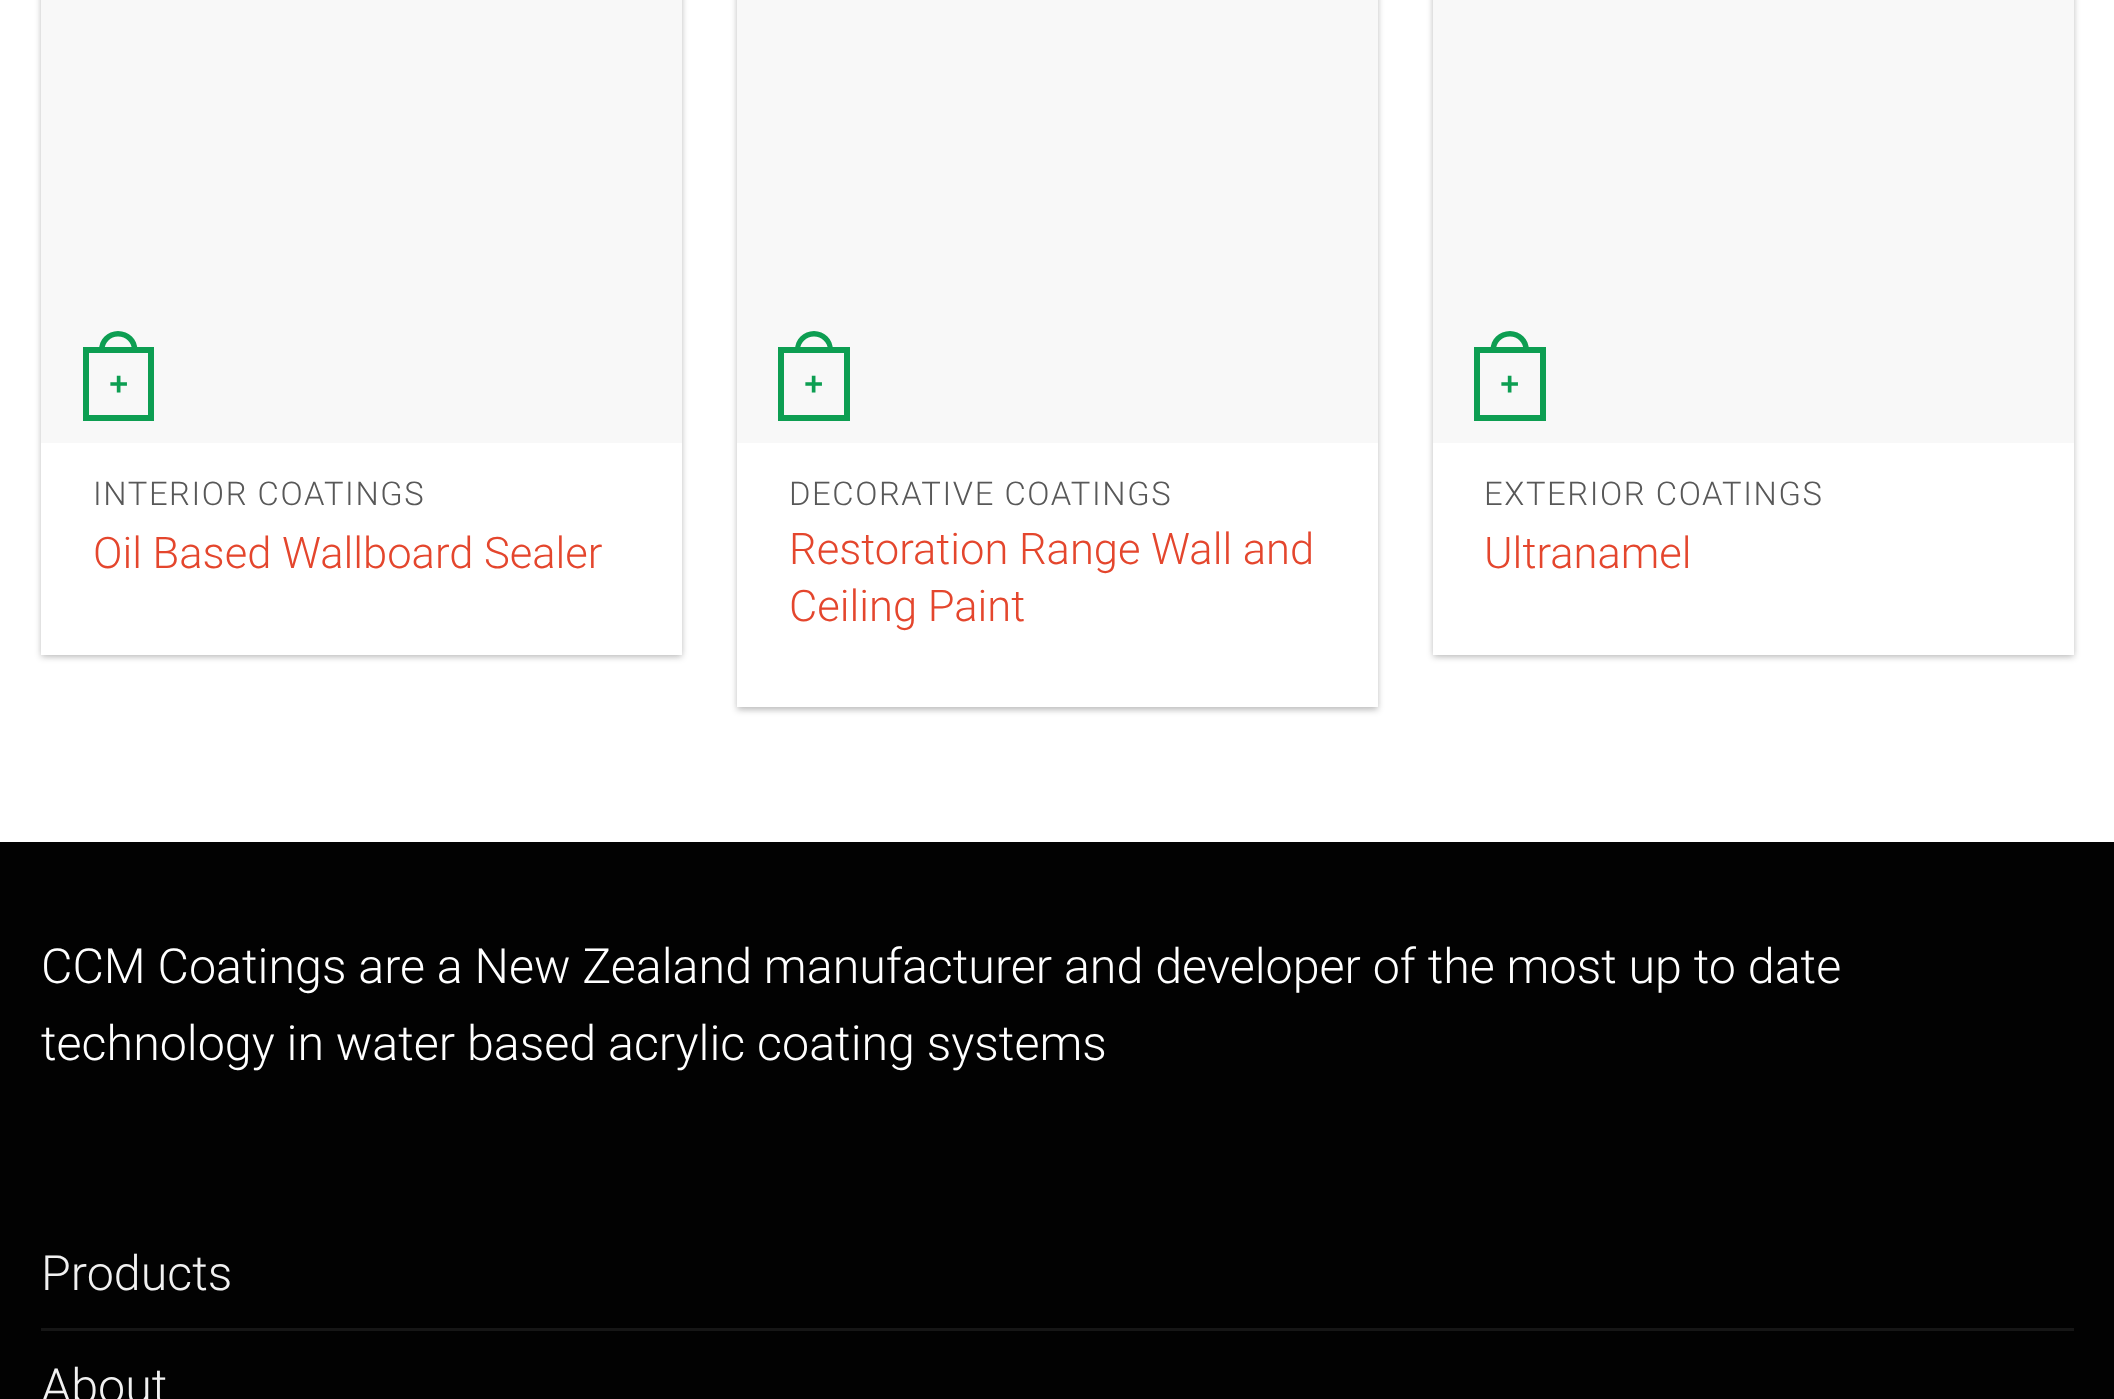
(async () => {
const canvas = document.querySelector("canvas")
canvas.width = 2114
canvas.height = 1399
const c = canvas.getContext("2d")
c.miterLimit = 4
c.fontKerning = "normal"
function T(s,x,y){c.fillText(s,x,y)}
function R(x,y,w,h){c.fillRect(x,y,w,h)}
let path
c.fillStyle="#fff"
R(0,0,2114,1399)
c.fillStyle="#0000003d"
c.filter="blur(3px)"
c.beginPath()
c.rect(41,-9,641,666)
c.fill()
c.filter="none"
c.fillStyle="#0000001f"
c.filter="blur(4px)"
c.beginPath()
c.rect(47,-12,630,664)
c.fill()
c.filter="none"
c.fillStyle="#fff"
R(41,443,641,212)
c.fillStyle="#f8f8f8"
R(41,0,641,443)
c.strokeStyle="#0d9e52"
c.lineWidth=6
c.strokeRect(86,350,65,68)
c.fillStyle="#0d9e52"
path = new Path2D("M118 331c11 0 19.5 8.5 19.5 19v3h-38.5v-3c0-10.5 8.5-19 19-19zm0 5.5c8 0 14 6 14 13.5v3h-27.5v-3c0-7.5 6-13.5 13.5-13.5z")
c.fill(path,"evenodd")
c.font="bold 33px Liberation Sans"
T("+",109,395)
c.letterSpacing="1.6px"
c.font="300 32.75px Roboto"
c.fillStyle="#585858"
T("INTERIOR COATINGS",93,505)
c.letterSpacing="0px"
c.font="300 43.5px Roboto"
c.fillStyle="#e4462d"
T("Oil Based Wallboard Sealer",93,568)
c.fillStyle="#0000003d"
c.filter="blur(3px)"
c.beginPath()
c.rect(737,-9,641,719)
c.fill()
c.filter="none"
c.fillStyle="#0000001f"
c.filter="blur(4px)"
c.beginPath()
c.rect(743,-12,629,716)
c.fill()
c.filter="none"
c.fillStyle="#fff"
R(737,443,641,264)
c.fillStyle="#f8f8f8"
R(737,0,641,443)
c.strokeRect(781,350,66,68)
c.fillStyle="#0d9e52"
path = new Path2D("M814 331c10.5 0 19 8.5 19 19v3h-38v-3c0-10.5 8.5-19 19-19zm0 5.5c7.5 0 14 6 14 13.5v3h-28v-3c0-7.5 6.5-13.5 14-13.5z")
c.fill(path,"evenodd")
c.font="bold 33px Liberation Sans"
T("+",804,395)
c.letterSpacing="1.6px"
c.font="300 32.75px Roboto"
c.fillStyle="#585858"
T("DECORATIVE COATINGS",789,505)
c.letterSpacing="0px"
c.font="300 43.5px Roboto"
c.fillStyle="#e4462d"
T("Restoration Range Wall and",789,564)
T("Ceiling Paint",789,621)
c.fillStyle="#0000003d"
c.filter="blur(3px)"
c.beginPath()
c.rect(1433,-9,641,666)
c.fill()
c.filter="none"
c.fillStyle="#0000001f"
c.filter="blur(4px)"
c.beginPath()
c.rect(1438,-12,630,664)
c.fill()
c.filter="none"
c.fillStyle="#fff"
R(1433,443,641,212)
c.fillStyle="#f8f8f8"
R(1433,0,641,443)
c.strokeRect(1477,350,66,68)
c.fillStyle="#0d9e52"
path = new Path2D("M1510 331c10.5 0 19 8.5 19 19v3h-38.5v-3c0-10.5 8.5-19 19.5-19zm0 5.5c7.5 0 13.5 6 13.5 13.5v3h-27.5v-3c0-7.5 6-13.5 14-13.5z")
c.fill(path,"evenodd")
c.font="bold 33px Liberation Sans"
T("+",1500,395)
c.letterSpacing="1.6px"
c.font="300 32.75px Roboto"
c.fillStyle="#585858"
T("EXTERIOR COATINGS",1484,505)
c.letterSpacing="0px"
c.font="300 43.5px Roboto"
c.fillStyle="#e4462d"
T("Ultranamel",1484,568)
c.fillStyle="#020202"
R(0,842,2114,557)
c.font="300 48.4px Roboto"
c.fillStyle="#fff"
T("CCM Coatings are a New Zealand manufacturer and developer of the most up to date",41,983)
T("technology in water based acrylic coating systems",41,1060)
c.fillStyle="#f1f1f1"
T("Products",41,1290)
c.fillStyle="#161616"
R(41,1328,2033,3)
c.fillStyle="#f1f1f1"
T("About",41,1403)
})()
